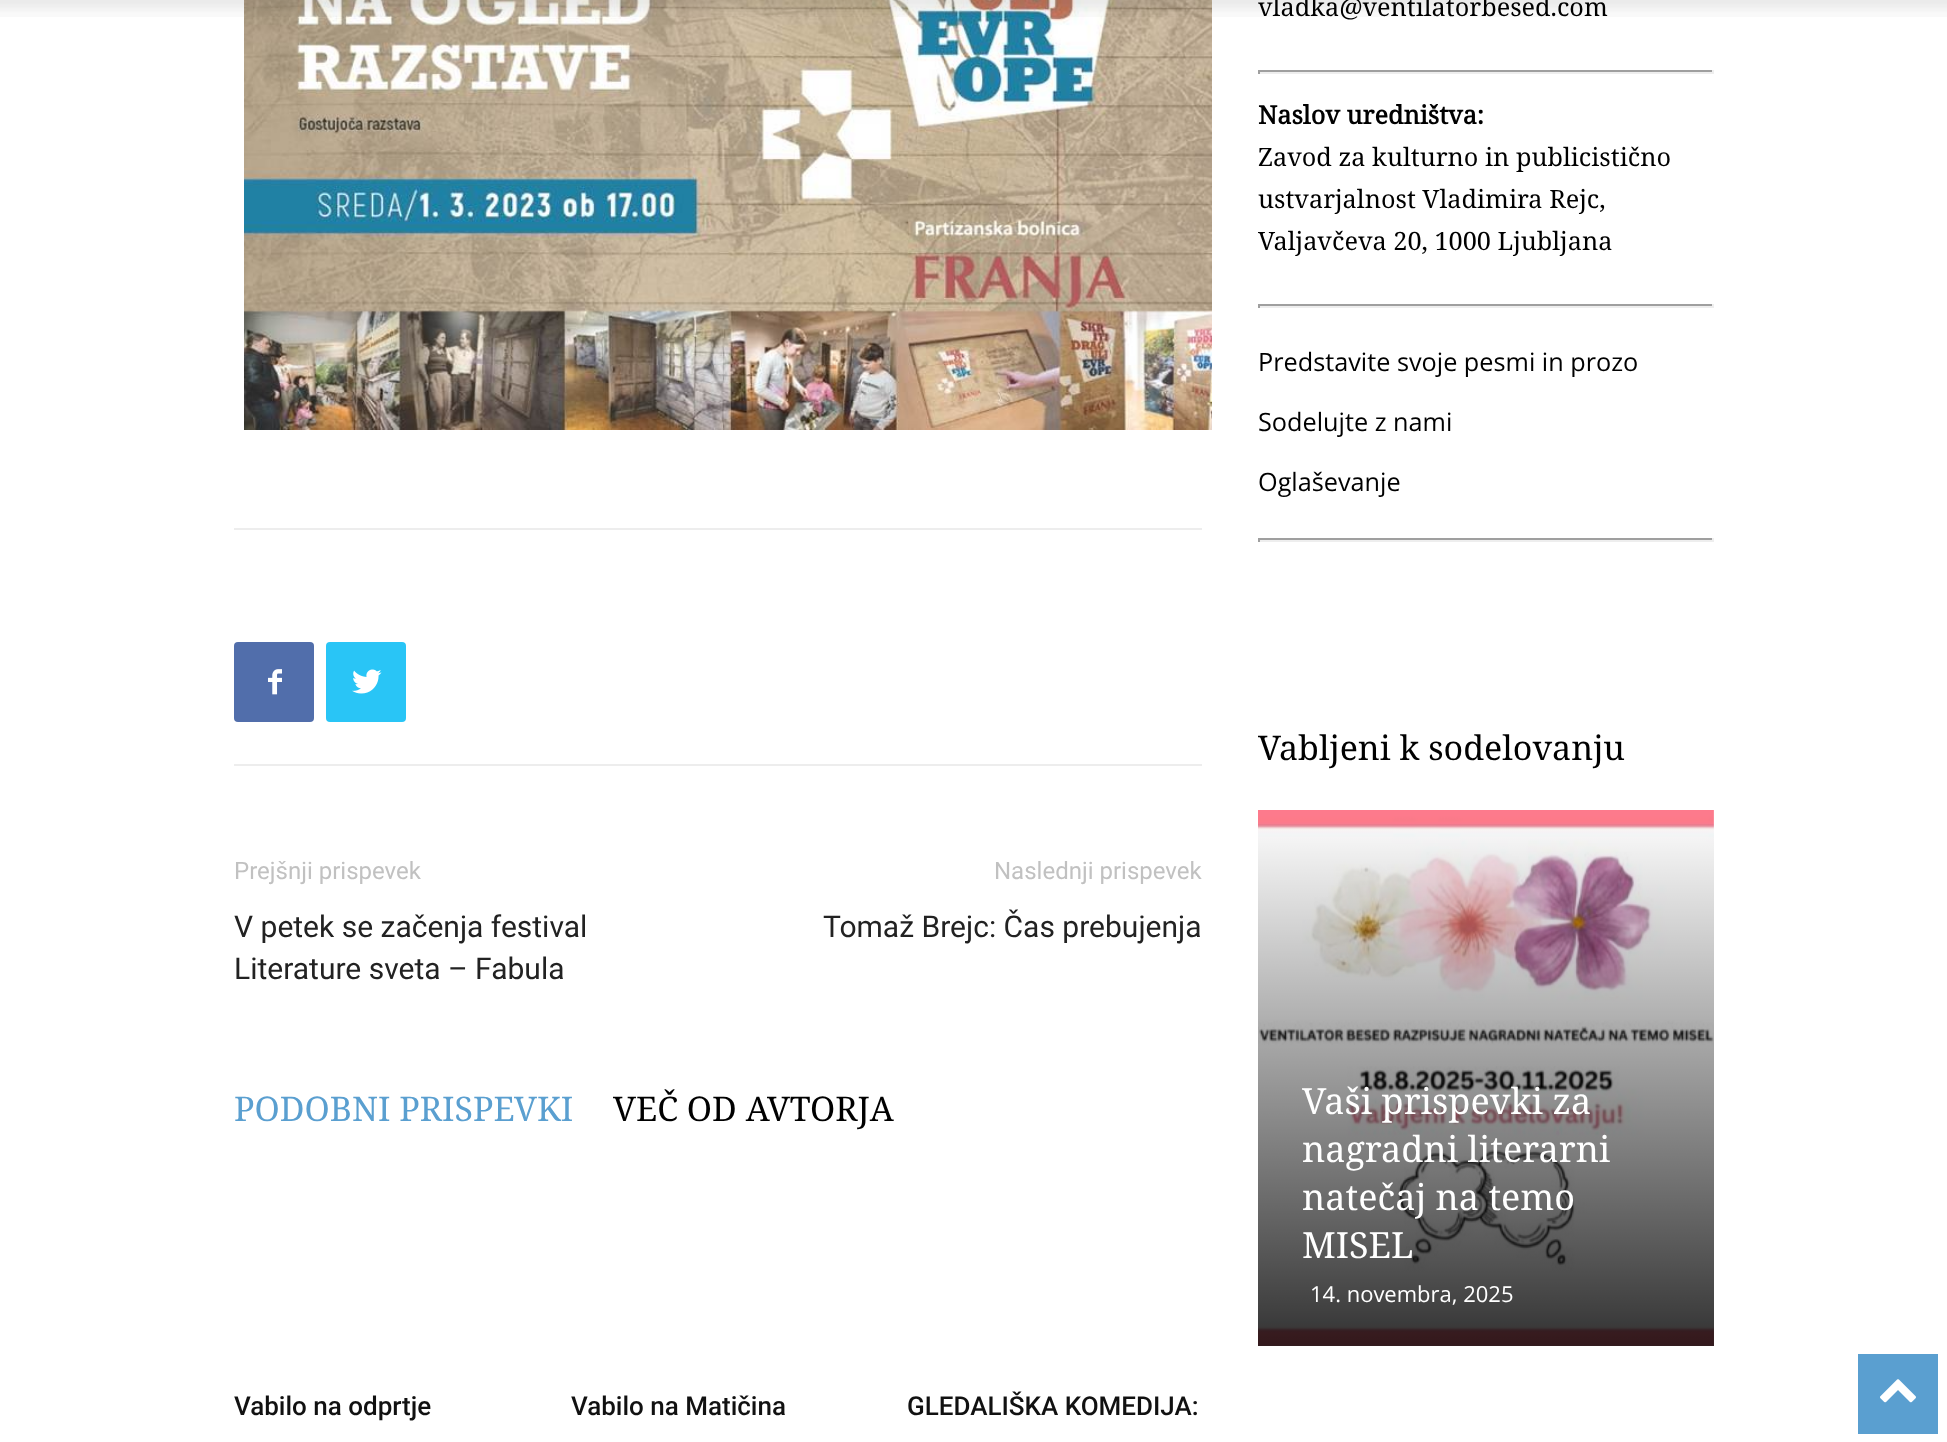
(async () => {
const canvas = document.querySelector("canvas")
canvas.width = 1947
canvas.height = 1442
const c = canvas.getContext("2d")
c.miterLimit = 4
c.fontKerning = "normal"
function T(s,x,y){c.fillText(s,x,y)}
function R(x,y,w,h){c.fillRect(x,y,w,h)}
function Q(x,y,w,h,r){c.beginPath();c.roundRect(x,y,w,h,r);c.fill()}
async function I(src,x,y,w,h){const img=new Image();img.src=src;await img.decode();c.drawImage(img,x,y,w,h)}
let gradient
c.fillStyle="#fff"
R(0,0,1947,1442)
await I("2.png",244,0,968,430)
c.font="25.25px Noto Serif"
c.fillStyle="#000"
T("vladka@ventilatorbesed.com",1258,16)
await I("1.png",0,0,1947,17)
c.fillStyle="#ededed"
R(234,528,968,2)
R(234,764,968,2)
c.fillStyle="#516eab"
Q(234,642,80,80,4)
await I("3.png",268,669,14,26)
c.fillStyle="#29c5f6"
Q(326,642,80,80,4)
await I("4.png",352,669,30,25)
c.font="24px Roboto"
c.fillStyle="#c1c1c1"
T("Prejšnji prispevek",234,879)
c.font="30px Roboto"
c.fillStyle="#222"
T("V petek se začenja festival",234,937)
T("Literature sveta – Fabula",234,979)
c.font="24px Roboto"
c.fillStyle="#c1c1c1"
T("Naslednji prispevek",994,879)
c.font="30px Roboto"
c.fillStyle="#222"
T("Tomaž Brejc: Čas prebujenja",823,937)
c.font="34px Noto Serif"
c.fillStyle="#5a9fd0"
T("PODOBNI PRISPEVKI",234,1121)
c.fillStyle="#000"
T("VEČ OD AVTORJA",613,1121)
c.font="500 26px Roboto"
c.fillStyle="#111"
T("Vabilo na odprtje",234,1415)
T("Vabilo na Matičina",571,1415)
T("GLEDALIŠKA KOMEDIJA:",907,1415)
c.fillStyle="#9f9f9f"
R(1258,70,456,2)
c.fillStyle="#eee"
R(1712,70,2,4)
R(1258,72,456,2)
c.fillStyle="#9f9f9f"
R(1258,70,2,4)
c.font="bold 25.25px Noto Serif"
c.fillStyle="#000"
T("Naslov uredništva:",1258,124)
c.font="25.25px Noto Serif"
T("Zavod za kulturno in publicistično",1258,166)
T("ustvarjalnost Vladimira Rejc,",1258,208)
T("Valjavčeva 20, 1000 Ljubljana",1258,250)
c.fillStyle="#9f9f9f"
R(1258,304,456,2)
c.fillStyle="#eee"
R(1712,304,2,4)
R(1258,306,456,2)
c.fillStyle="#9f9f9f"
R(1258,304,2,4)
c.font="25.25px Open Sans"
c.fillStyle="#000"
T("Predstavite svoje pesmi in prozo",1258,371)
T("Sodelujte z nami",1258,431)
T("Oglaševanje",1258,491)
c.fillStyle="#9f9f9f"
R(1258,538,456,2)
c.fillStyle="#eee"
R(1712,538,2,4)
R(1258,540,456,2)
c.fillStyle="#9f9f9f"
R(1258,538,2,4)
c.font="34px Noto Serif"
c.fillStyle="#000"
T("Vabljeni k sodelovanju",1258,760)
await I("5.png",1258,810,456,536)
gradient = c.createLinearGradient(1486,810,1486,1346)
gradient.addColorStop(0,"#00000000")
gradient.addColorStop(1,"#000000cc")
c.fillStyle = gradient
R(1258,824,456,522)
c.font="36px Noto Serif"
c.fillStyle="#fff"
T("Vaši prispevki za",1302,1114)
T("nagradni literarni",1302,1162)
T("natečaj na temo",1302,1210)
T("MISEL",1302,1258)
c.font="22px Open Sans"
T("14. novembra, 2025",1310,1302)
c.fillStyle="#5a9fd0"
R(1858,1354,80,80)
await I("6.png",1880,1379,36,24)
})()
